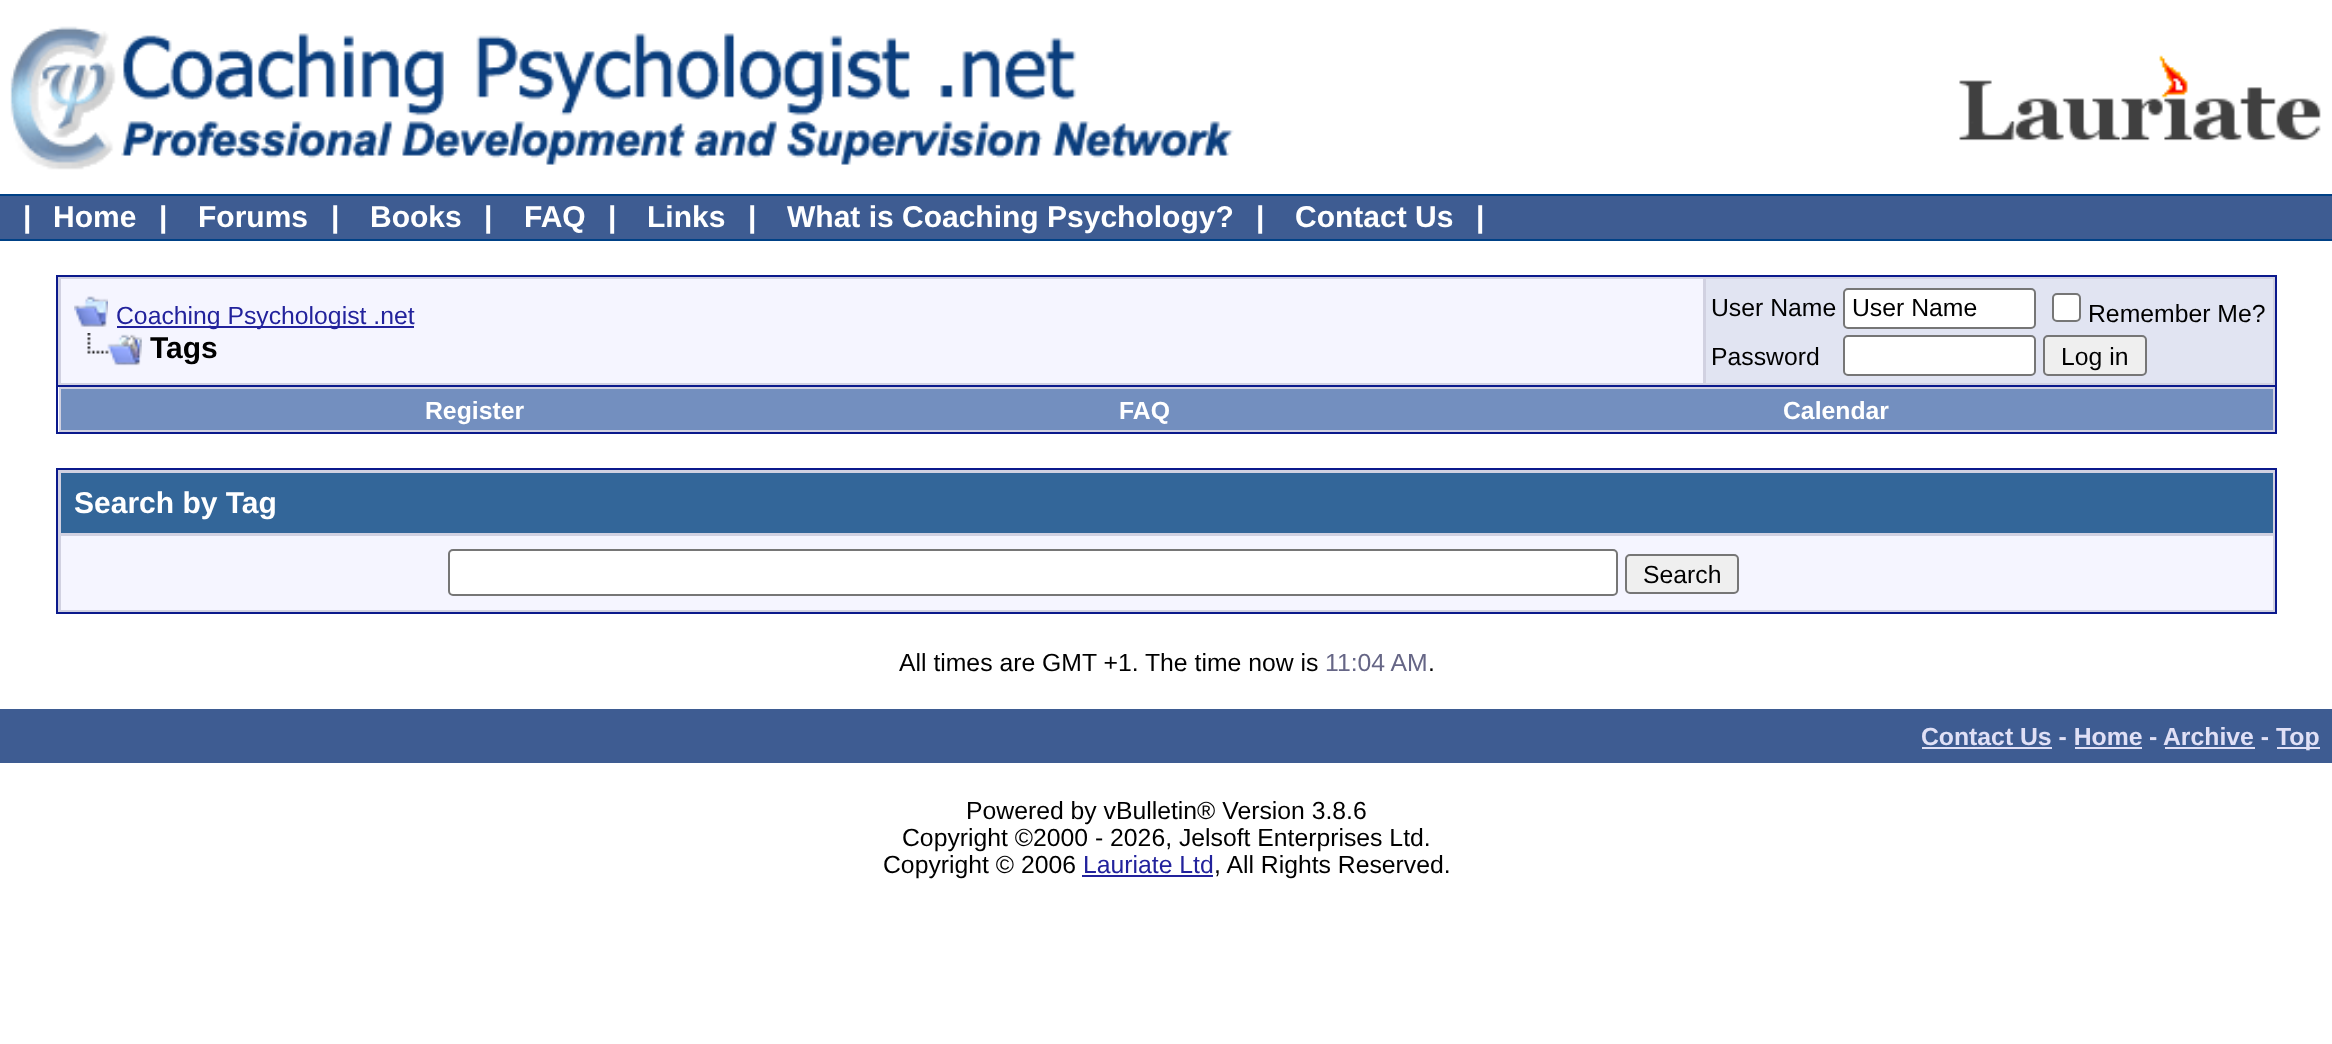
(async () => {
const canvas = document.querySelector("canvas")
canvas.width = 2332
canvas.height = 1044
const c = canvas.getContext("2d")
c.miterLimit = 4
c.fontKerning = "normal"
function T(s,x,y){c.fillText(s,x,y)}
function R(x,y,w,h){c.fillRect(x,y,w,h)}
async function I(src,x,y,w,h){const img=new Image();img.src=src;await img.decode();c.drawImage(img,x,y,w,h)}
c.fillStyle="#fff"
R(0,0,2332,1044)
await I("1.png",10,26,1224,144)
await I("2.png",1959,55,362,86)
c.fillStyle="#004186"
R(0,194,2332,2)
c.fillStyle="#3e5c92"
R(0,196,2332,43)
c.font="bold 30px Liberation Sans"
c.fillStyle="#fff"
T("|",23,227)
T("Home",53,227)
T("|",159,227)
T("Forums",198,227)
T("|",331,227)
T("Books",370,227)
T("|",484,227)
T("FAQ",524,227)
T("|",608,227)
T("Links",647,227)
T("|",748,227)
T("What is Coaching Psychology?",787,227)
T("|",1256,227)
T("Contact Us",1295,227)
T("|",1476,227)
c.fillStyle="#004186"
R(0,239,2332,2)
c.fillStyle="#d1d1e1"
c.beginPath()
c.rect(57,276,2219,110)
c.fill()
c.strokeStyle="#0b198c"
c.lineWidth=2
c.stroke()
c.fillStyle="#f5f5ff"
R(61,279,1642,104)
await I("3.png",74,296,34,31)
c.fillStyle="#22229c"
R(117,326,297,2)
c.font="24.75px Liberation Sans"
T("Coaching Psychologist .net",116,324)
await I("4.png",87,333,55,33)
c.font="bold 30px Liberation Sans"
c.fillStyle="#000"
T("Tags",150,358)
c.fillStyle="#e1e4f2"
R(1706,279,567,104)
c.font="24.75px Liberation Sans"
c.fillStyle="#000"
T("User Name",1711,316)
c.fillStyle="#fff"
c.beginPath()
c.roundRect(1844,289,191,39,4)
c.fill()
c.strokeStyle="#767676"
c.stroke()
c.fillStyle="#000"
T("User Name",1852,316)
c.fillStyle="#fff"
c.beginPath()
c.roundRect(2053,294,27,27,4)
c.fill()
c.stroke()
c.fillStyle="#000"
T("Remember Me?",2088,322)
T("Password",1711,365)
c.fillStyle="#fff"
c.beginPath()
c.roundRect(1844,336,191,39,4)
c.fill()
c.stroke()
c.fillStyle="#efefef"
c.beginPath()
c.roundRect(2044,336,102,39,4)
c.fill()
c.stroke()
c.fillStyle="#000"
T("Log in",2061,365)
c.fillStyle="#d1d1e1"
R(59,387,2216,45)
c.fillStyle="#0b198c"
R(2275,387,2,47)
R(56,432,2221,2)
R(56,387,2,47)
c.fillStyle="#738fbf"
R(61,389,2212,41)
c.font="bold 24.75px Liberation Sans"
c.fillStyle="#fff"
T("Register",425,419)
T("FAQ",1119,419)
T("Calendar",1783,419)
c.fillStyle="#d1d1e1"
c.beginPath()
c.rect(57,469,2219,144)
c.fill()
c.strokeStyle="#0b198c"
c.stroke()
c.fillStyle="#369"
R(61,473,2212,60)
c.font="bold 30px Liberation Sans"
c.fillStyle="#fff"
T("Search by Tag",74,513)
c.fillStyle="#f5f5ff"
R(61,536,2212,74)
c.fillStyle="#fff"
c.beginPath()
c.roundRect(449,550,1168,45,4)
c.fill()
c.strokeStyle="#767676"
c.stroke()
c.fillStyle="#efefef"
c.beginPath()
c.roundRect(1626,555,112,38,4)
c.fill()
c.stroke()
c.font="24.75px Liberation Sans"
c.fillStyle="#000"
T("Search",1643,583)
T("All times are GMT +1. The time now is",899,671)
c.fillStyle="#666686"
T("11:04 AM",1325,671)
c.fillStyle="#000"
T(".",1428,671)
c.fillStyle="#3e5c92"
R(0,709,2332,54)
c.font="bold 24.75px Liberation Sans"
c.fillStyle="#e0e0f6"
T("Contact Us - Home",1921,745)
R(1922,747,130,2)
R(2075,747,67,2)
T("-",2149,745)
T("Archive -",2163,745)
R(2165,747,90,2)
R(2277,747,43,2)
T("Top",2276,745)
c.font="24.75px Liberation Sans"
c.fillStyle="#000"
T("Powered by vBulletin® Version 3.8.6",966,819)
T("Copyright ©2000 - 2026, Jelsoft Enterprises Ltd.",902,846)
T("Copyright © 2006",883,873)
c.fillStyle="#22229c"
T("Lauriate Ltd",1083,873)
R(1082,875,131,2)
c.fillStyle="#000"
T(", All Rights Reserved.",1214,873)
})()
